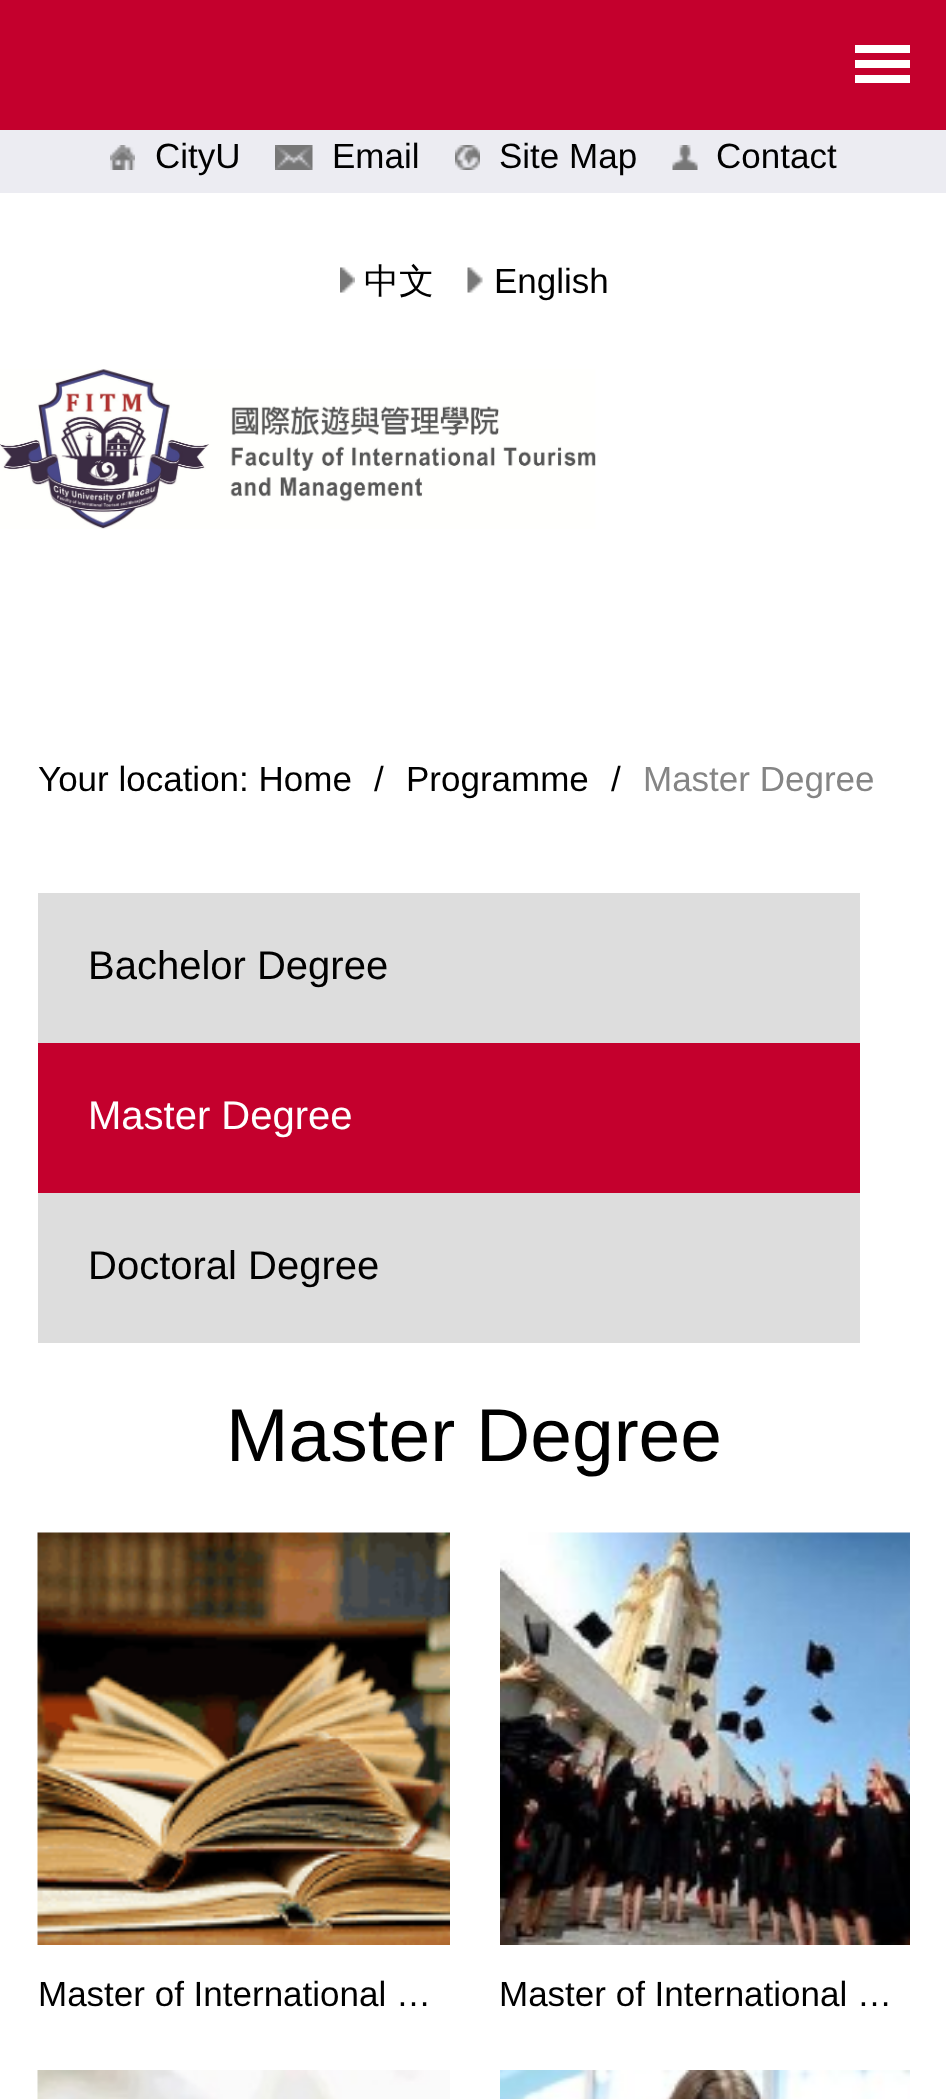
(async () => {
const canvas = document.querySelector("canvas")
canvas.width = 946
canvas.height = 2099
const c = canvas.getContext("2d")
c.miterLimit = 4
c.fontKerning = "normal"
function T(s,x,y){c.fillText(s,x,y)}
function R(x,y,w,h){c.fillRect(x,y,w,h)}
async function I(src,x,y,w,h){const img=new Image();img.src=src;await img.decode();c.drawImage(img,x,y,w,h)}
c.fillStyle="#fff"
R(0,0,946,2099)
c.fillStyle="#c4002d"
R(0,0,946,130)
c.fillStyle="#fff"
R(855,45,55,8)
R(855,60,55,8)
R(855,75,55,8)
c.fillStyle="#ececf2"
R(0,130,946,63)
await I("1.png",110,145,25,25)
c.font="35px Liberation Sans"
c.fillStyle="#000"
T("CityU",155,168)
await I("2.png",275,145,38,25)
T("Email",332,168)
await I("3.png",455,145,25,25)
T("Site Map",499,168)
await I("4.png",672,145,26,25)
T("Contact",716,168)
await I("5.png",340,267,15,26)
c.font="500 35px WenQuanYi Zen Hei"
T("中文",364,293)
await I("6.png",467,267,16,26)
c.font="35px Liberation Sans"
T("English",494,293)
await I("7.png",0,369,596,160)
T("Your location: Home",38,791)
T("/",374,791)
T("Programme",406,791)
T("/",611,791)
c.fillStyle="#858585"
T("Master Degree",643,791)
c.fillStyle="#ddd"
R(38,893,822,150)
c.font="40px Liberation Sans"
c.fillStyle="#000"
T("Bachelor Degree",88,979)
c.fillStyle="#c4002d"
R(38,1043,822,150)
c.fillStyle="#fff"
T("Master Degree",88,1129)
c.fillStyle="#ddd"
R(38,1193,822,150)
c.fillStyle="#000"
T("Doctoral Degree",88,1279)
c.font="75px Liberation Sans"
T("Master Degree",226,1461)
await I("8.png",37,1532,413,413)
c.font="35px Liberation Sans"
T("Master of International …",38,2006)
await I("9.png",500,1532,410,413)
T("Master of International …",499,2006)
await I("10.png",37,2070,413,29)
await I("11.png",500,2070,410,29)
})()
